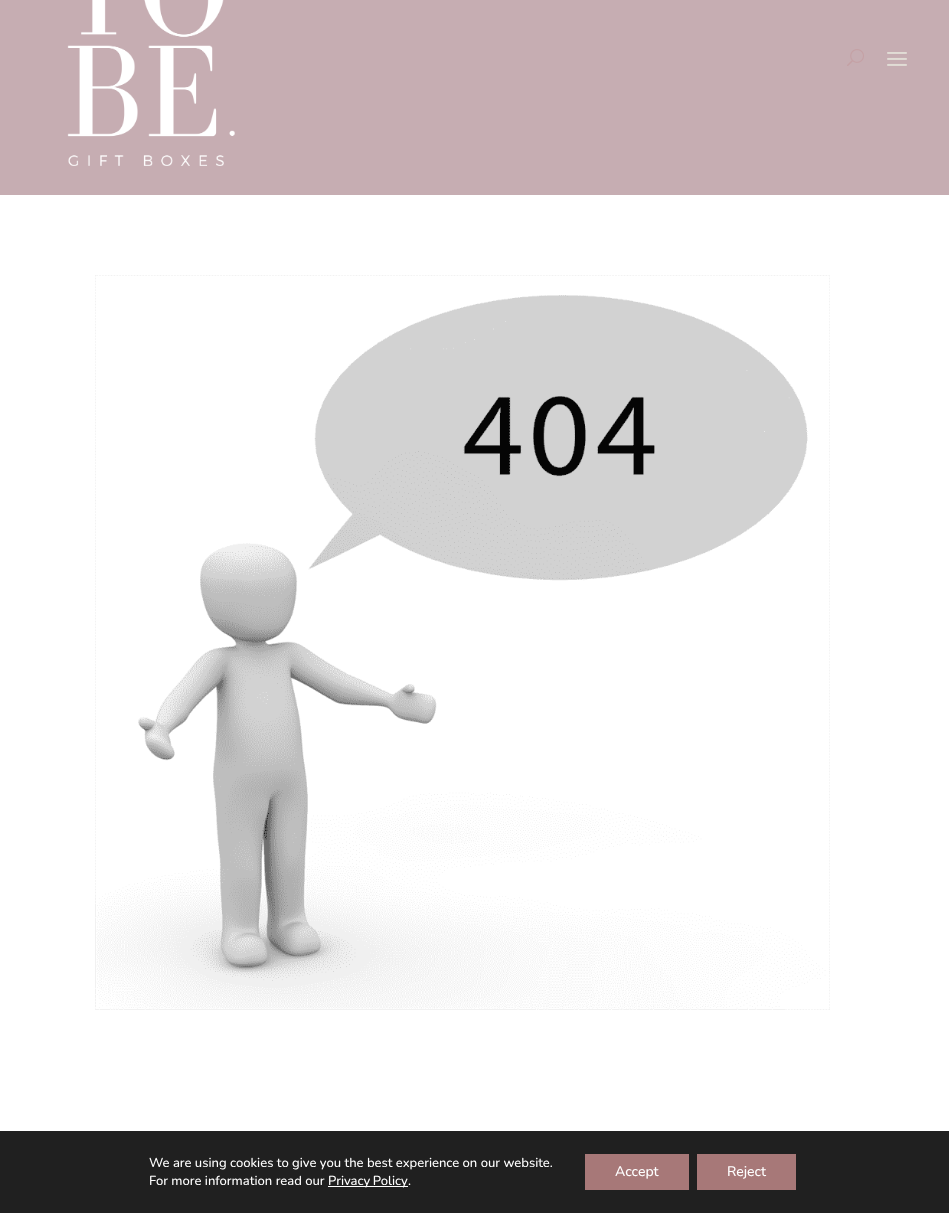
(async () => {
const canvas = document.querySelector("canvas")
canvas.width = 949
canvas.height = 1213
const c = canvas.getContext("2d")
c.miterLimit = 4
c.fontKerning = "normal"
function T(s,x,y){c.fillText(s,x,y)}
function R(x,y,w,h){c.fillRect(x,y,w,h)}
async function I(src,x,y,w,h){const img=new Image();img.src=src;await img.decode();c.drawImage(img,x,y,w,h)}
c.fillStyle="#fff"
R(0,0,949,1213)
c.fillStyle="#c6adb2"
R(0,0,949,195)
await I("1.png",67,0,168,166)
await I("2.png",847,49,17,17)
await I("3.png",887,52,20,14)
await I("4.png",95,275,735,735)
c.fillStyle="#202020"
R(0,1131,949,82)
c.font="500 13px Nunito"
c.fillStyle="#fff"
T("We are using cookies to give you the best experience on our website.",149,1167)
T("For more information read our",149,1185)
R(328,1186,80,1)
c.wordSpacing="-1px"
T("Privacy Policy",328,1185)
c.wordSpacing="0px"
T(".",408,1185)
c.fillStyle="#a77878"
R(585,1154,104,36)
c.font="500 14px Nunito"
c.fillStyle="#fff"
T("Accept",615,1176)
c.fillStyle="#a77878"
R(697,1154,99,36)
c.fillStyle="#fff"
T("Reject",727,1176)
})()
